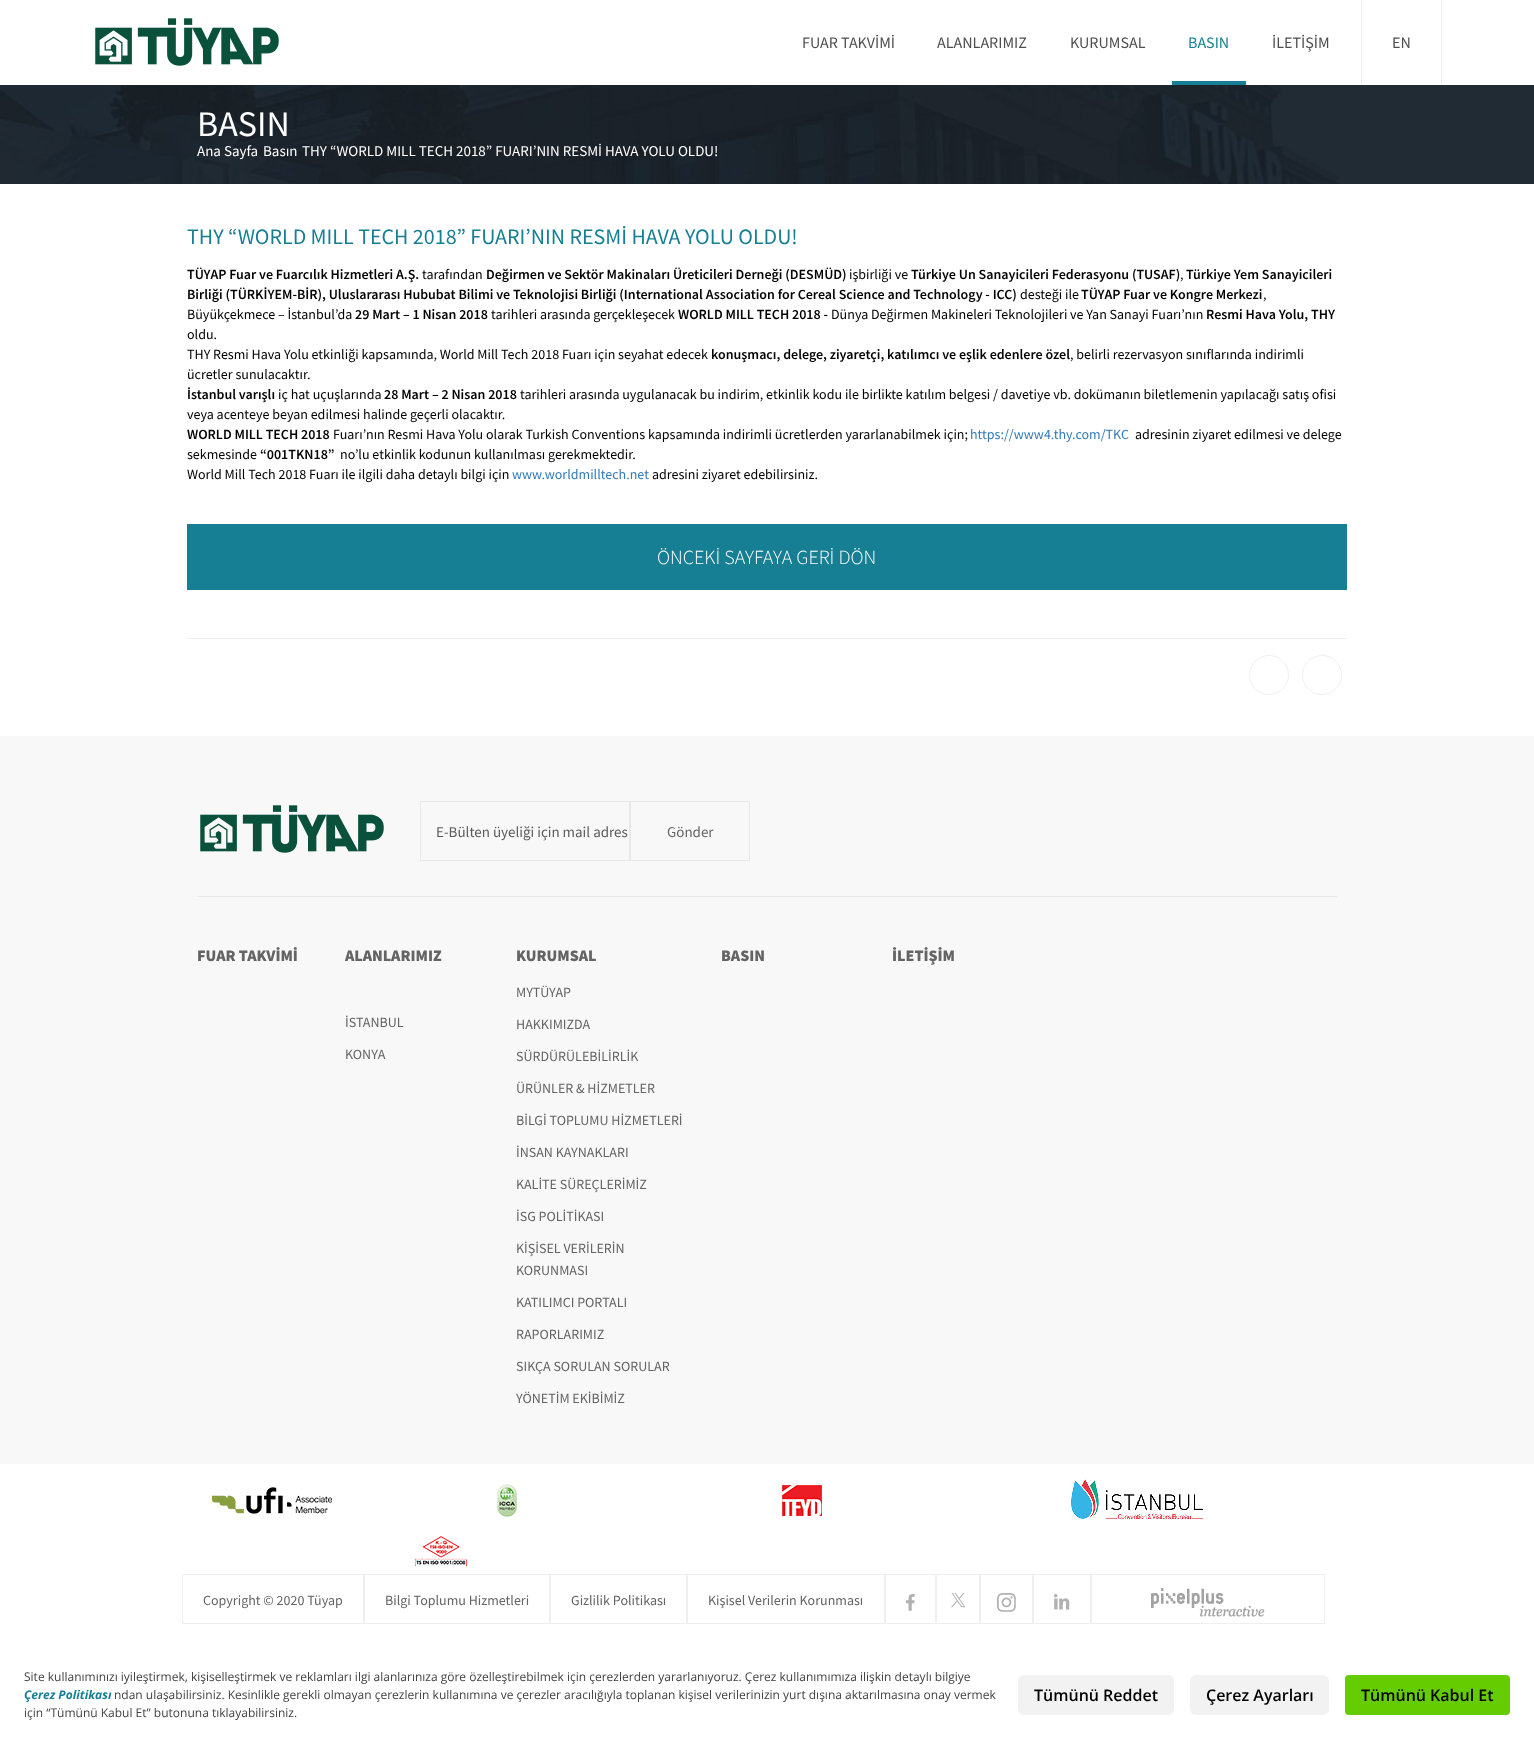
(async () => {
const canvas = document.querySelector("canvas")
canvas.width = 1534
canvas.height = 1746
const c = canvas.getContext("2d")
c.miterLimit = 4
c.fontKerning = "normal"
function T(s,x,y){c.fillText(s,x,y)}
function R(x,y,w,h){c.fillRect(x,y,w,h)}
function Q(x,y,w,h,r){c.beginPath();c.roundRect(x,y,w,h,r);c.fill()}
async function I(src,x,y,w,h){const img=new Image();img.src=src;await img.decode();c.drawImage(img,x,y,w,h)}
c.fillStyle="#fff"
R(0,0,1534,1746)
await I("1.png",95,18,184,48)
c.font="16px Source Sans Pro"
c.fillStyle="#4e4e4e"
T("FUAR TAKVİMİ",802,48)
T("ALANLARIMIZ",937,48)
T("KURUMSAL",1070,48)
c.fillStyle="#167f93"
R(1172,81,74,4)
T("BASIN",1188,48)
c.fillStyle="#4e4e4e"
T("İLETİŞİM",1272,48)
c.fillStyle="#eee"
R(1441,0,1,85)
R(1361,0,1,85)
c.fillStyle="#4e4e4e"
T("EN",1392,48)
c.fillStyle="#212b34"
R(1339,85,195,99)
await I("2.png",0,85,1339,99)
c.font="36px Source Sans Pro"
c.fillStyle="#fff"
T("BASIN",197,136)
c.font="15px Source Sans Pro"
T("Ana Sayfa",197,156)
T("Basın",263,156)
T("THY “WORLD MILL TECH 2018” FUARI’NIN RESMİ HAVA YOLU OLDU!",302,156)
c.fillStyle="#efefef"
R(187,638,1160,1)
c.font="22px Source Sans Pro"
c.fillStyle="#167f93"
T("THY “WORLD MILL TECH 2018” FUARI’NIN RESMİ HAVA YOLU OLDU!",187,244)
c.font="600 14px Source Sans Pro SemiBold"
c.fillStyle="#000"
T("TÜYAP Fuar ve Fuarcılık Hizmetleri A.Ş.",187,279)
c.font="14px Source Sans Pro"
T("tarafından",422,279)
c.font="600 14px Source Sans Pro SemiBold"
T("Değirmen ve Sektör Makinaları Üreticileri Derneği (DESMÜD)",486,279)
c.font="14px Source Sans Pro"
T("işbirliği ve",849,279)
c.font="600 14px Source Sans Pro SemiBold"
T("Türkiye Un Sanayicileri Federasyonu (TUSAF)",911,279)
c.font="14px Source Sans Pro"
T(",",1180,279)
c.font="600 14px Source Sans Pro SemiBold"
T("Türkiye Yem Sanayicileri",1186,279)
T("Birliği (TÜRKİYEM-BİR), Uluslararası Hububat Bilimi ve Teknolojisi Birliği (International Association for Cereal Science and Technology - ICC)",187,299)
c.font="14px Source Sans Pro"
T("desteği ile",1020,299)
c.font="600 14px Source Sans Pro SemiBold"
T("TÜYAP Fuar ve Kongre Merkezi",1081,299)
c.font="14px Source Sans Pro"
T(",",1263,299)
T("Büyükçekmece – İstanbul’da",187,319)
c.font="600 14px Source Sans Pro SemiBold"
T("29 Mart – 1 Nisan 2018",355,319)
c.font="14px Source Sans Pro"
T("tarihleri arasında gerçekleşecek",491,319)
c.font="600 14px Source Sans Pro SemiBold"
T("WORLD MILL TECH 2018 -",678,319)
c.font="14px Source Sans Pro"
T("Dünya Değirmen Makineleri Teknolojileri ve Yan Sanayi Fuarı’nın",831,319)
c.font="600 14px Source Sans Pro SemiBold"
T("Resmi Hava Yolu, THY",1206,319)
c.font="14px Source Sans Pro"
T("oldu.",187,339)
T("THY Resmi Hava Yolu etkinliği kapsamında, World Mill Tech 2018 Fuarı için seyahat edecek",187,359)
c.font="600 14px Source Sans Pro SemiBold"
T("konuşmacı, delege, ziyaretçi, katılımcı ve eşlik edenlere özel",711,359)
c.font="14px Source Sans Pro"
T(", belirli rezervasyon sınıflarında indirimli",1070,359)
T("ücretler sunulacaktır.",187,379)
c.font="600 14px Source Sans Pro SemiBold"
T("İstanbul varışlı",187,399)
c.font="14px Source Sans Pro"
T("iç hat uçuşlarında",278,399)
c.font="600 14px Source Sans Pro SemiBold"
T("28 Mart – 2 Nisan 2018",384,399)
c.font="14px Source Sans Pro"
T("tarihleri arasında uygulanacak bu indirim, etkinlik kodu ile birlikte katılım belgesi / davetiye vb. dokümanın biletlemenin yapılacağı satış ofisi",520,399)
T("veya acenteye beyan edilmesi halinde geçerli olacaktır.",187,419)
c.font="600 14px Source Sans Pro SemiBold"
T("WORLD MILL TECH 2018",187,439)
c.font="14px Source Sans Pro"
T("Fuarı’nın Resmi Hava Yolu olarak Turkish Conventions kapsamında indirimli ücretlerden yararlanabilmek için;",333,439)
c.fillStyle="#337ab7"
T("https://www4.thy.com/TKC",970,439)
c.fillStyle="#000"
T("adresinin ziyaret edilmesi ve delege",1135,439)
T("sekmesinde",187,459)
c.font="600 14px Source Sans Pro SemiBold"
T("“001TKN18”",260,459)
c.font="14px Source Sans Pro"
T("no’lu etkinlik kodunun kullanılması gerekmektedir.",340,459)
T("World Mill Tech 2018 Fuarı ile ilgili daha detaylı bilgi için",187,479)
c.fillStyle="#337ab7"
T("www.worldmilltech.net",512,479)
c.fillStyle="#000"
T("adresini ziyaret edebilirsiniz.",652,479)
c.fillStyle="#167f93"
R(187,524,1160,66)
c.font="300 20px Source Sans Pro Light"
c.fillStyle="#fff"
T("ÖNCEKİ SAYFAYA GERİ DÖN",657,564)
c.beginPath()
c.arc(1269,675,19.5,0,7)
c.strokeStyle="#efefef"
c.stroke()
c.beginPath()
c.arc(1322,675,19.5,0,7)
c.stroke()
c.fillStyle="#f8f8f8"
R(0,736,1534,728)
c.fillStyle="#e8e8e8"
R(197,896,1140,1)
await I("3.png",200,805,184,48)
c.strokeStyle="#e8e8e8"
c.strokeRect(420.5,801.5,209,59)
c.font="15px Source Sans Pro"
c.fillStyle="#5b5b5b"
T("E-Bülten üyeliği için mail adres",436,837)
c.strokeRect(630.5,801.5,119,59)
c.fillStyle="#646464"
T("Gönder",667,837)
c.font="900 16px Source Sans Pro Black"
T("FUAR TAKVİMİ",197,961)
T("ALANLARIMIZ",345,961)
c.font="14px Source Sans Pro"
T("İSTANBUL",345,1027)
T("KONYA",345,1059)
c.font="900 16px Source Sans Pro Black"
T("KURUMSAL",516,961)
c.font="14px Source Sans Pro"
T("MYTÜYAP",516,997)
T("HAKKIMIZDA",516,1029)
T("SÜRDÜRÜLEBİLİRLİK",516,1061)
T("ÜRÜNLER & HİZMETLER",516,1093)
T("BİLGİ TOPLUMU HİZMETLERİ",516,1125)
T("İNSAN KAYNAKLARI",516,1157)
T("KALİTE SÜREÇLERİMİZ",516,1189)
T("İSG POLİTİKASI",516,1221)
T("KİŞİSEL VERİLERİN",516,1253)
T("KORUNMASI",516,1275)
T("KATILIMCI PORTALI",516,1307)
T("RAPORLARIMIZ",516,1339)
T("SIKÇA SORULAN SORULAR",516,1371)
T("YÖNETİM EKİBİMİZ",516,1403)
c.font="900 16px Source Sans Pro Black"
T("BASIN",721,961)
T("İLETİŞİM",892,961)
await I("4.png",212,1487,120,27)
await I("5.png",497,1484,20,33)
await I("6.png",782,1485,40,31)
await I("7.png",1071,1479,132,40)
await I("8.png",415,1536,52,30)
c.strokeStyle="#efefef"
c.strokeRect(182.5,1574.5,181,49)
c.font="14px Source Sans Pro"
T("Copyright © 2020 Tüyap",203,1605)
c.strokeRect(364.5,1574.5,185,49)
T("Bilgi Toplumu Hizmetleri",385,1605)
c.strokeRect(550.5,1574.5,136,49)
T("Gizlilik Politikası",571,1605)
c.strokeRect(687.5,1574.5,197,49)
T("Kişisel Verilerin Korunması",708,1605)
c.strokeRect(885.5,1574.5,50,49)
await I("9.png",906,1594,9,17)
c.strokeRect(936.5,1574.5,43,49)
await I("10.png",951,1593,14,15)
c.strokeRect(980.5,1574.5,52,49)
await I("11.png",997,1593,19,19)
c.strokeRect(1033.5,1574.5,57,49)
await I("12.png",1054,1594,16,16)
c.strokeRect(1091.5,1574.5,233,49)
await I("13.png",1151,1588,114,29)
c.font="12px Open Sans"
c.fillStyle="#424242"
T("Site kullanımınızı iyileştirmek, kişiselleştirmek ve reklamları ilgi alanlarınıza göre özelleştirebilmek için çerezlerden yararlanıyoruz. Çerez kullanımımıza ilişkin detaylı bilgiye",24,1681)
c.font="italic bold 12px Open Sans"
c.fillStyle="#167f93"
T("Çerez Politikası",24,1699)
c.font="12px Open Sans"
c.fillStyle="#424242"
T("ndan ulaşabilirsiniz. Kesinlikle gerekli olmayan çerezlerin kullanımına ve çerezler aracılığıyla toplanan kişisel verilerinizin yurt dışına aktarılmasına onay vermek",114,1699)
T("için “Tümünü Kabul Et” butonuna tıklayabilirsiniz.",24,1717)
c.fillStyle="#f2f2f2"
Q(1018,1675,156,40,6)
c.font="600 16px Open Sans"
c.fillStyle="#000"
T("Tümünü Reddet",1034,1701)
c.fillStyle="#f2f2f2"
Q(1190,1675,139,40,6)
c.fillStyle="#000"
T("Çerez Ayarları",1206,1701)
c.fillStyle="#65cc01"
Q(1345,1675,165,40,4)
c.fillStyle="#000"
T("Tümünü Kabul Et",1361,1701)
})()
